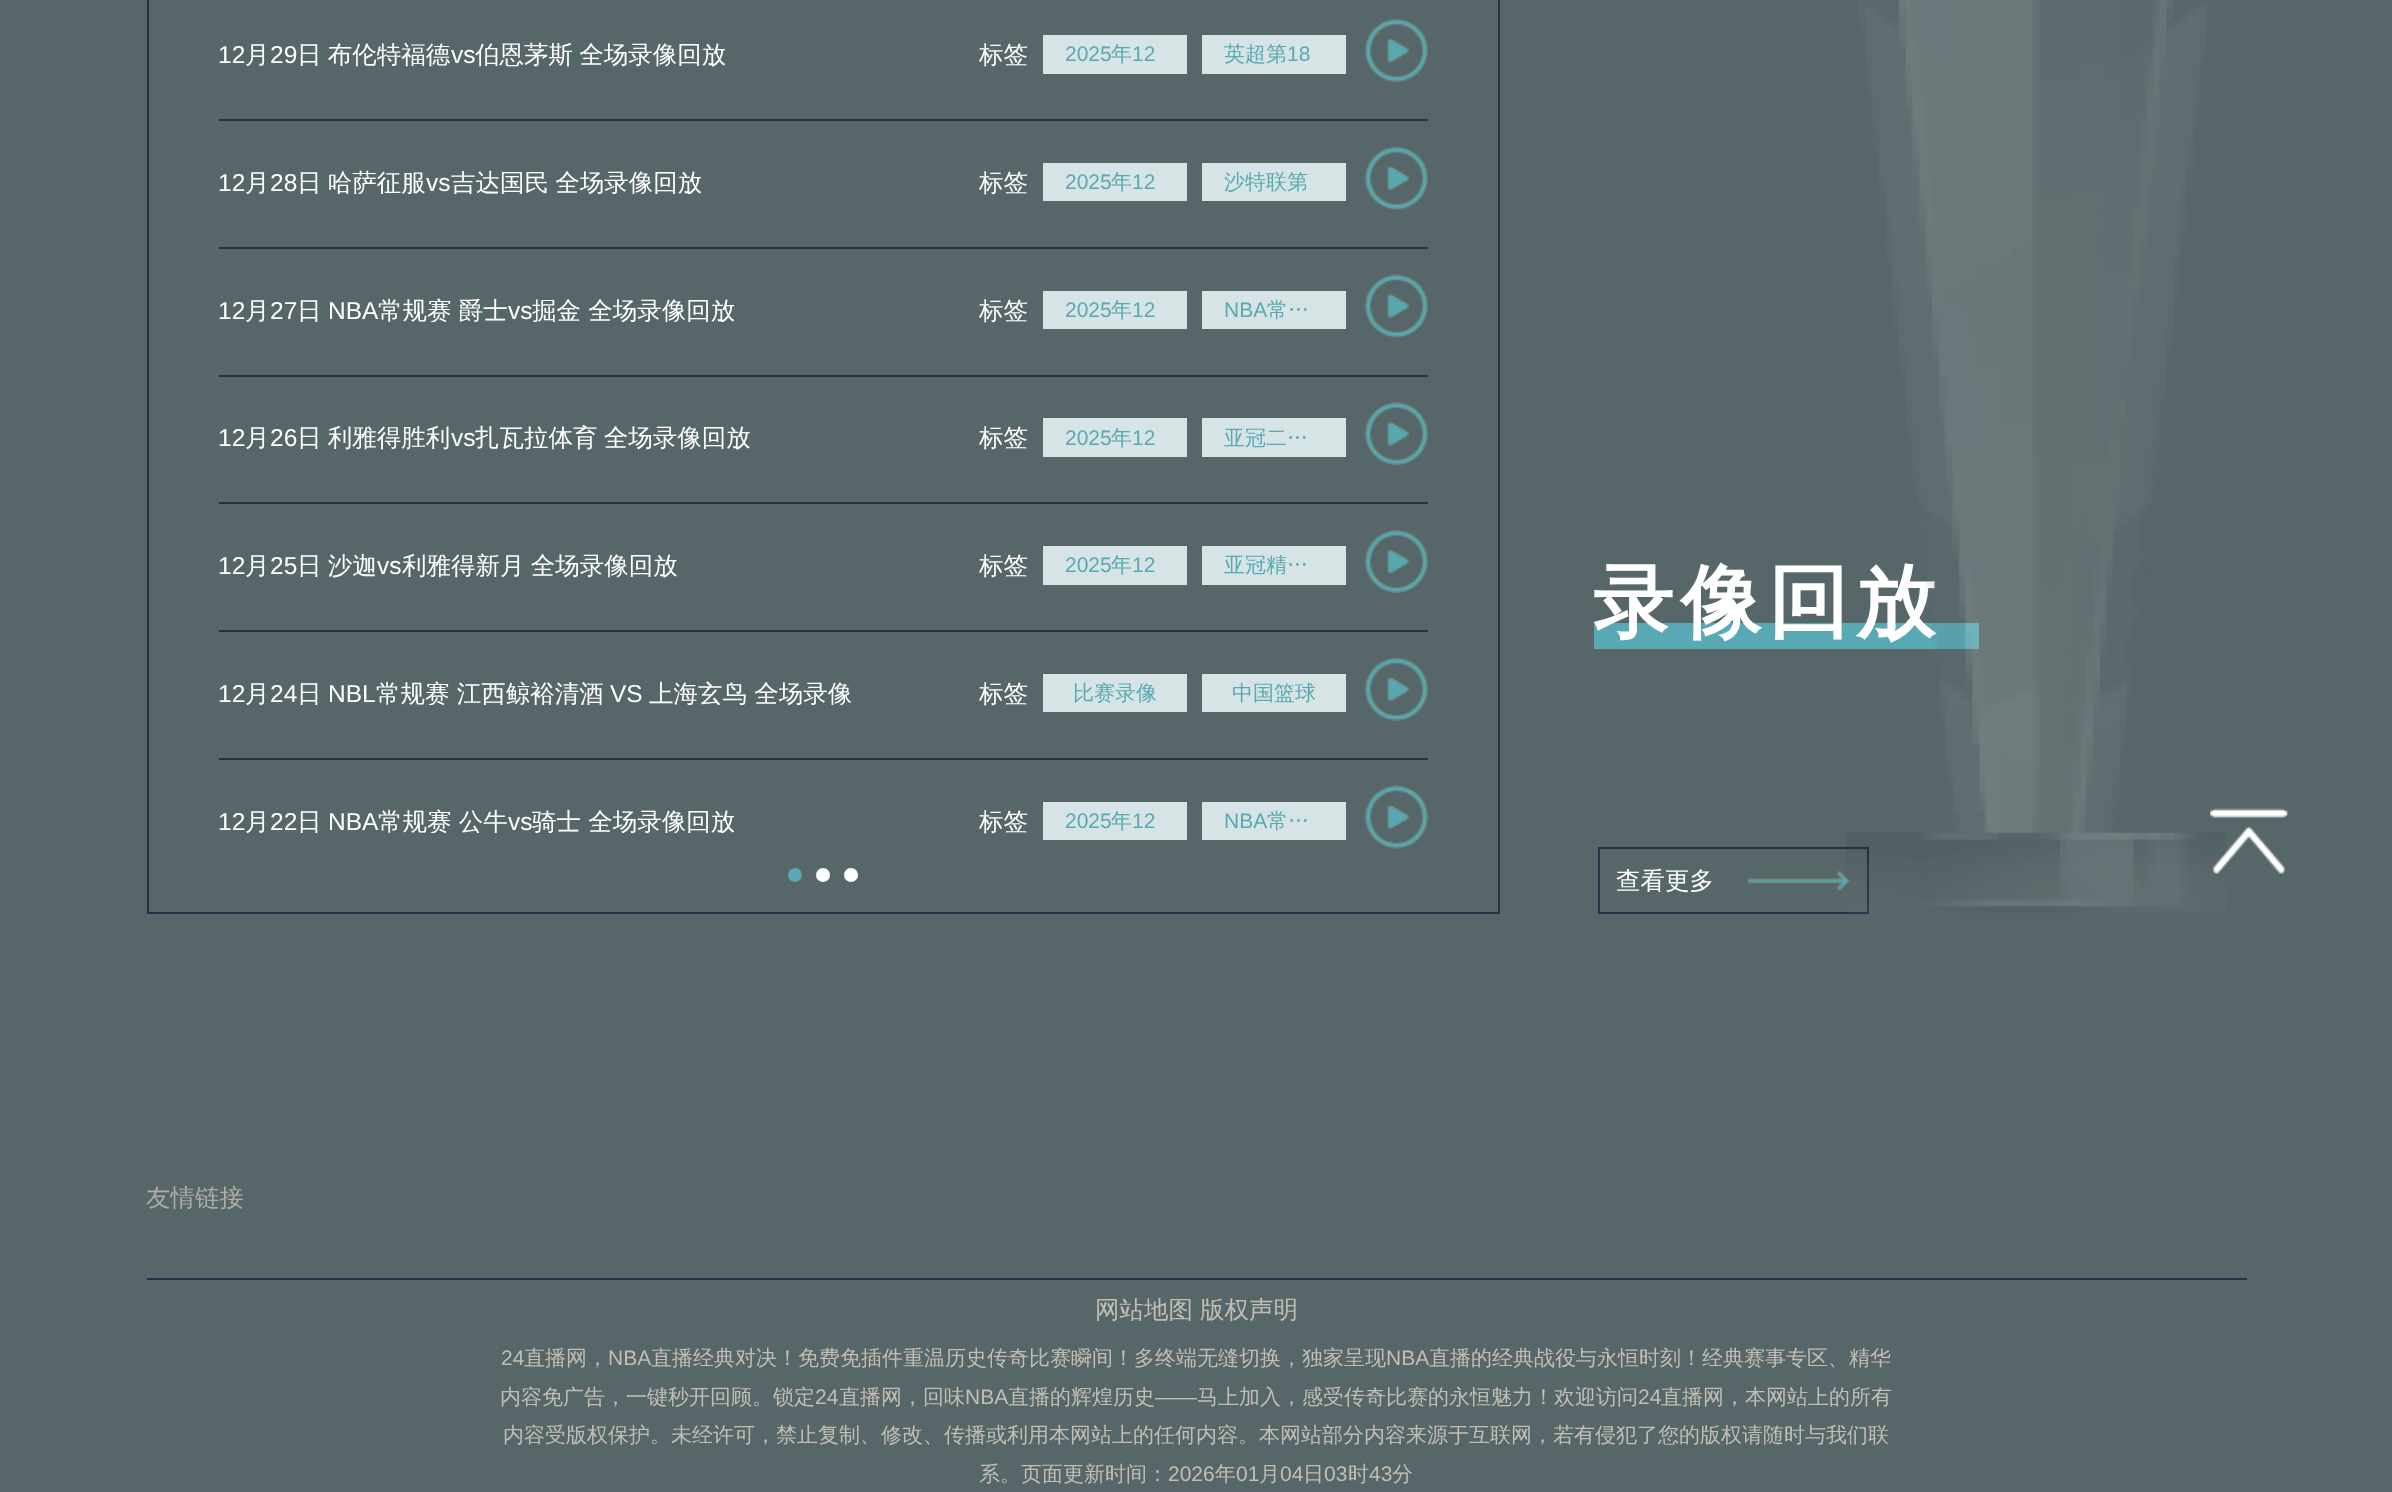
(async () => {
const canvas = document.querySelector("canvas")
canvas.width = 2392
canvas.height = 1492
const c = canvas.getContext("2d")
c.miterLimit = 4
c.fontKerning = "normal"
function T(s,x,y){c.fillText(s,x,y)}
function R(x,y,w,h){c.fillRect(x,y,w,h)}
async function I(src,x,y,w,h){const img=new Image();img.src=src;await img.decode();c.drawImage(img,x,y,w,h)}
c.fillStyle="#576668"
R(0,0,2392,1492)
c.strokeStyle="#293048"
c.lineWidth=2
c.strokeRect(148,-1,1351,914)
c.fillStyle="#293048"
R(219,119,1209,2)
c.font="24.5px Liberation Sans"
c.fillStyle="#fff"
T("12",218,63)
c.font="500 24.5px WenQuanYi Zen Hei"
T("月",245,63)
c.font="24.5px Liberation Sans"
T("29",270,63)
c.wordSpacing="-1px"
c.font="500 24.5px WenQuanYi Zen Hei"
T("日 布伦特福德",297,63)
c.wordSpacing="0px"
c.font="24.5px Liberation Sans"
T("vs",451,63)
c.wordSpacing="-1px"
c.font="500 24.5px WenQuanYi Zen Hei"
T("伯恩茅斯 全场录像回放",475,63)
c.wordSpacing="0px"
T("标签",979,63)
c.fillStyle="#d7e4e6"
R(1043,35,144,39)
c.font="21px Liberation Sans"
c.fillStyle="#58a9b3"
T("2025",1065,61)
c.font="500 21px WenQuanYi Zen Hei"
T("年",1111,61)
c.font="21px Liberation Sans"
T("12",1132,61)
c.fillStyle="#d7e4e6"
R(1202,35,144,39)
c.font="500 21px WenQuanYi Zen Hei"
c.fillStyle="#58a9b3"
T("英超第",1224,61)
c.font="21px Liberation Sans"
T("18",1287,61)
await I("1.png",1364,19,64,63)
c.fillStyle="#293048"
R(219,247,1209,2)
c.font="24.5px Liberation Sans"
c.fillStyle="#fff"
T("12",218,191)
c.font="500 24.5px WenQuanYi Zen Hei"
T("月",245,191)
c.font="24.5px Liberation Sans"
T("28",270,191)
c.save()
c.beginPath()
c.rect(219,170,691,24)
c.clip()
c.wordSpacing="-1px"
c.font="500 24.5px WenQuanYi Zen Hei"
T("日 哈萨征服",297,191)
c.restore()
T("vs",426,191)
c.save()
c.beginPath()
c.rect(219,170,691,24)
c.clip()
c.wordSpacing="-1px"
c.font="500 24.5px WenQuanYi Zen Hei"
T("吉达国民 全场录像回放",451,191)
c.restore()
c.font="500 24.5px WenQuanYi Zen Hei"
T("标签",979,191)
c.fillStyle="#d7e4e6"
R(1043,163,144,38)
c.font="21px Liberation Sans"
c.fillStyle="#58a9b3"
T("2025",1065,189)
c.font="500 21px WenQuanYi Zen Hei"
T("年",1111,189)
c.font="21px Liberation Sans"
T("12",1132,189)
c.fillStyle="#d7e4e6"
R(1202,163,144,38)
c.font="500 21px WenQuanYi Zen Hei"
c.fillStyle="#58a9b3"
T("沙特联第",1224,189)
await I("2.png",1364,146,64,64)
c.fillStyle="#293048"
R(219,375,1209,2)
c.font="24.5px Liberation Sans"
c.fillStyle="#fff"
T("12",218,319)
c.font="500 24.5px WenQuanYi Zen Hei"
T("月",245,319)
c.font="24.5px Liberation Sans"
T("27",270,319)
c.font="500 24.5px WenQuanYi Zen Hei"
T("日",297,319)
c.font="24.5px Liberation Sans"
T("NBA",328,319)
c.save()
c.beginPath()
c.rect(219,298,691,24)
c.clip()
c.font="500 24.5px WenQuanYi Zen Hei"
T("常规赛 爵士",378,319)
c.restore()
T("vs",508,319)
c.save()
c.beginPath()
c.rect(219,298,691,24)
c.clip()
c.font="500 24.5px WenQuanYi Zen Hei"
T("掘金 全场录像回放",532,319)
c.restore()
c.font="500 24.5px WenQuanYi Zen Hei"
T("标签",979,319)
c.fillStyle="#d7e4e6"
R(1043,291,144,38)
c.font="21px Liberation Sans"
c.fillStyle="#58a9b3"
T("2025",1065,317)
c.font="500 21px WenQuanYi Zen Hei"
T("年",1111,317)
c.font="21px Liberation Sans"
T("12",1132,317)
c.fillStyle="#d7e4e6"
R(1202,291,144,38)
c.fillStyle="#58a9b3"
T("NBA",1224,317)
c.font="500 21px WenQuanYi Zen Hei"
T("常…",1267,317)
await I("3.png",1364,274,64,64)
c.fillStyle="#293048"
R(219,502,1209,2)
c.font="24.5px Liberation Sans"
c.fillStyle="#fff"
T("12",218,446)
c.font="500 24.5px WenQuanYi Zen Hei"
T("月",245,446)
c.font="24.5px Liberation Sans"
T("26",270,446)
c.wordSpacing="-1px"
c.font="500 24.5px WenQuanYi Zen Hei"
T("日 利雅得胜利",297,446)
c.wordSpacing="0px"
c.font="24.5px Liberation Sans"
T("vs",451,446)
c.wordSpacing="-1px"
c.font="500 24.5px WenQuanYi Zen Hei"
T("扎瓦拉体育 全场录像回放",475,446)
c.wordSpacing="0px"
T("标签",979,446)
c.fillStyle="#d7e4e6"
R(1043,418,144,39)
c.font="21px Liberation Sans"
c.fillStyle="#58a9b3"
T("2025",1065,445)
c.font="500 21px WenQuanYi Zen Hei"
T("年",1111,445)
c.font="21px Liberation Sans"
T("12",1132,445)
c.fillStyle="#d7e4e6"
R(1202,418,144,39)
c.font="500 21px WenQuanYi Zen Hei"
c.fillStyle="#58a9b3"
T("亚冠二…",1224,445)
await I("4.png",1364,402,64,64)
c.fillStyle="#293048"
R(219,630,1209,2)
c.font="24.5px Liberation Sans"
c.fillStyle="#fff"
T("12",218,574)
c.font="500 24.5px WenQuanYi Zen Hei"
T("月",245,574)
c.font="24.5px Liberation Sans"
T("25",270,574)
c.wordSpacing="-1px"
c.font="500 24.5px WenQuanYi Zen Hei"
T("日 沙迦",297,574)
c.wordSpacing="0px"
c.font="24.5px Liberation Sans"
T("vs",377,574)
c.wordSpacing="-1px"
c.font="500 24.5px WenQuanYi Zen Hei"
T("利雅得新月 全场录像回放",402,574)
c.wordSpacing="0px"
T("标签",979,574)
c.fillStyle="#d7e4e6"
R(1043,546,144,39)
c.font="21px Liberation Sans"
c.fillStyle="#58a9b3"
T("2025",1065,572)
c.font="500 21px WenQuanYi Zen Hei"
T("年",1111,572)
c.font="21px Liberation Sans"
T("12",1132,572)
c.fillStyle="#d7e4e6"
R(1202,546,144,39)
c.font="500 21px WenQuanYi Zen Hei"
c.fillStyle="#58a9b3"
T("亚冠精…",1224,572)
await I("1.png",1364,530,64,63)
c.fillStyle="#293048"
R(219,758,1209,2)
c.font="24.5px Liberation Sans"
c.fillStyle="#fff"
T("12",218,702)
c.font="500 24.5px WenQuanYi Zen Hei"
T("月",245,702)
c.font="24.5px Liberation Sans"
T("24",270,702)
c.font="500 24.5px WenQuanYi Zen Hei"
T("日",297,702)
c.font="24.5px Liberation Sans"
T("NBL",328,702)
c.save()
c.beginPath()
c.rect(219,681,691,24)
c.clip()
c.font="500 24.5px WenQuanYi Zen Hei"
T("常规赛 江西鲸裕清酒",376,702)
c.restore()
T("VS",610,702)
c.save()
c.beginPath()
c.rect(219,681,691,24)
c.clip()
c.font="500 24.5px WenQuanYi Zen Hei"
T("上海玄鸟 全场录像",649,702)
c.restore()
c.font="500 24.5px WenQuanYi Zen Hei"
T("标签",979,702)
c.fillStyle="#d7e4e6"
R(1043,674,144,38)
c.font="500 21px WenQuanYi Zen Hei"
c.fillStyle="#58a9b3"
T("比赛录像",1073,700)
c.fillStyle="#d7e4e6"
R(1202,674,144,38)
c.fillStyle="#58a9b3"
T("中国篮球",1232,700)
await I("2.png",1364,657,64,64)
c.font="24.5px Liberation Sans"
c.fillStyle="#fff"
T("12",218,830)
c.font="500 24.5px WenQuanYi Zen Hei"
T("月",245,830)
c.font="24.5px Liberation Sans"
T("22",270,830)
c.font="500 24.5px WenQuanYi Zen Hei"
T("日",297,830)
c.font="24.5px Liberation Sans"
T("NBA",328,830)
c.save()
c.beginPath()
c.rect(219,809,691,24)
c.clip()
c.font="500 24.5px WenQuanYi Zen Hei"
T("常规赛 公牛",378,830)
c.restore()
T("vs",508,830)
c.save()
c.beginPath()
c.rect(219,809,691,24)
c.clip()
c.font="500 24.5px WenQuanYi Zen Hei"
T("骑士 全场录像回放",532,830)
c.restore()
c.font="500 24.5px WenQuanYi Zen Hei"
T("标签",979,830)
c.fillStyle="#d7e4e6"
R(1043,802,144,38)
c.font="21px Liberation Sans"
c.fillStyle="#58a9b3"
T("2025",1065,828)
c.font="500 21px WenQuanYi Zen Hei"
T("年",1111,828)
c.font="21px Liberation Sans"
T("12",1132,828)
c.fillStyle="#d7e4e6"
R(1202,802,144,38)
c.fillStyle="#58a9b3"
T("NBA",1224,828)
c.font="500 21px WenQuanYi Zen Hei"
T("常…",1267,828)
await I("3.png",1364,785,64,64)
c.beginPath()
c.arc(795,875,7,0,7)
c.fill()
c.fillStyle="#fff"
c.beginPath()
c.arc(823,875,7,0,7)
c.fill()
c.beginPath()
c.arc(851,875,7,0,7)
c.fill()
c.fillStyle="#58a9b3"
R(1594,623,385,26)
c.letterSpacing="7px"
c.font="bold 80.5px WenQuanYi Zen Hei"
c.fillStyle="#fff"
T("录像回放",1593,630)
c.strokeRect(1599,848,269,65)
await I("6.png",1748,871,102,20)
await I("5.png",1846,0,381,913)
c.letterSpacing="0px"
c.font="500 24.5px WenQuanYi Zen Hei"
T("查看更多",1616,889)
await I("7.png",2210,808,78,66)
c.fillStyle="#293048"
R(147,1278,2100,2)
c.fillStyle="#adaca6"
T("友情链接",146,1206)
c.fillStyle="#c3beb5"
T("网站地图",1095,1318)
T("版权声明",1200,1318)
c.font="21px Liberation Sans"
T("24",501,1365)
c.font="500 21px WenQuanYi Zen Hei"
T("直播网，",524,1365)
c.font="21px Liberation Sans"
T("NBA",608,1365)
c.font="500 21px WenQuanYi Zen Hei"
T("直播经典对决！免费免插件重温历史传奇比赛瞬间！多终端无缝切换，独家呈现",651,1365)
c.font="21px Liberation Sans"
T("NBA",1386,1365)
c.font="500 21px WenQuanYi Zen Hei"
T("直播的经典战役与永恒时刻！经典赛事专区、精华",1429,1365)
T("内容免广告，一键秒开回顾。锁定",500,1404)
c.font="21px Liberation Sans"
T("24",815,1404)
c.font="500 21px WenQuanYi Zen Hei"
T("直播网，回味",839,1404)
c.font="21px Liberation Sans"
T("NBA",965,1404)
c.font="500 21px WenQuanYi Zen Hei"
T("直播的辉煌历史",1008,1404)
c.font="21px Liberation Sans"
T("——",1155,1404)
c.font="500 21px WenQuanYi Zen Hei"
T("马上加入，感受传奇比赛的永恒魅力！欢迎访问",1197,1404)
c.font="21px Liberation Sans"
T("24",1638,1404)
c.font="500 21px WenQuanYi Zen Hei"
T("直播网，本网站上的所有",1661,1404)
T("内容受版权保护。未经许可，禁止复制、修改、传播或利用本网站上的任何内容。本网站部分内容来源于互联网，若有侵犯了您的版权请随时与我们联",503,1442)
T("系。页面更新时间：",979,1481)
c.font="21px Liberation Sans"
T("2026",1168,1481)
c.font="500 21px WenQuanYi Zen Hei"
T("年",1215,1481)
c.font="21px Liberation Sans"
T("01",1236,1481)
c.font="500 21px WenQuanYi Zen Hei"
T("月",1259,1481)
c.font="21px Liberation Sans"
T("04",1280,1481)
c.font="500 21px WenQuanYi Zen Hei"
T("日",1303,1481)
c.font="21px Liberation Sans"
T("03",1324,1481)
c.font="500 21px WenQuanYi Zen Hei"
T("时",1348,1481)
c.font="21px Liberation Sans"
T("43",1369,1481)
c.font="500 21px WenQuanYi Zen Hei"
T("分",1392,1481)
})()
